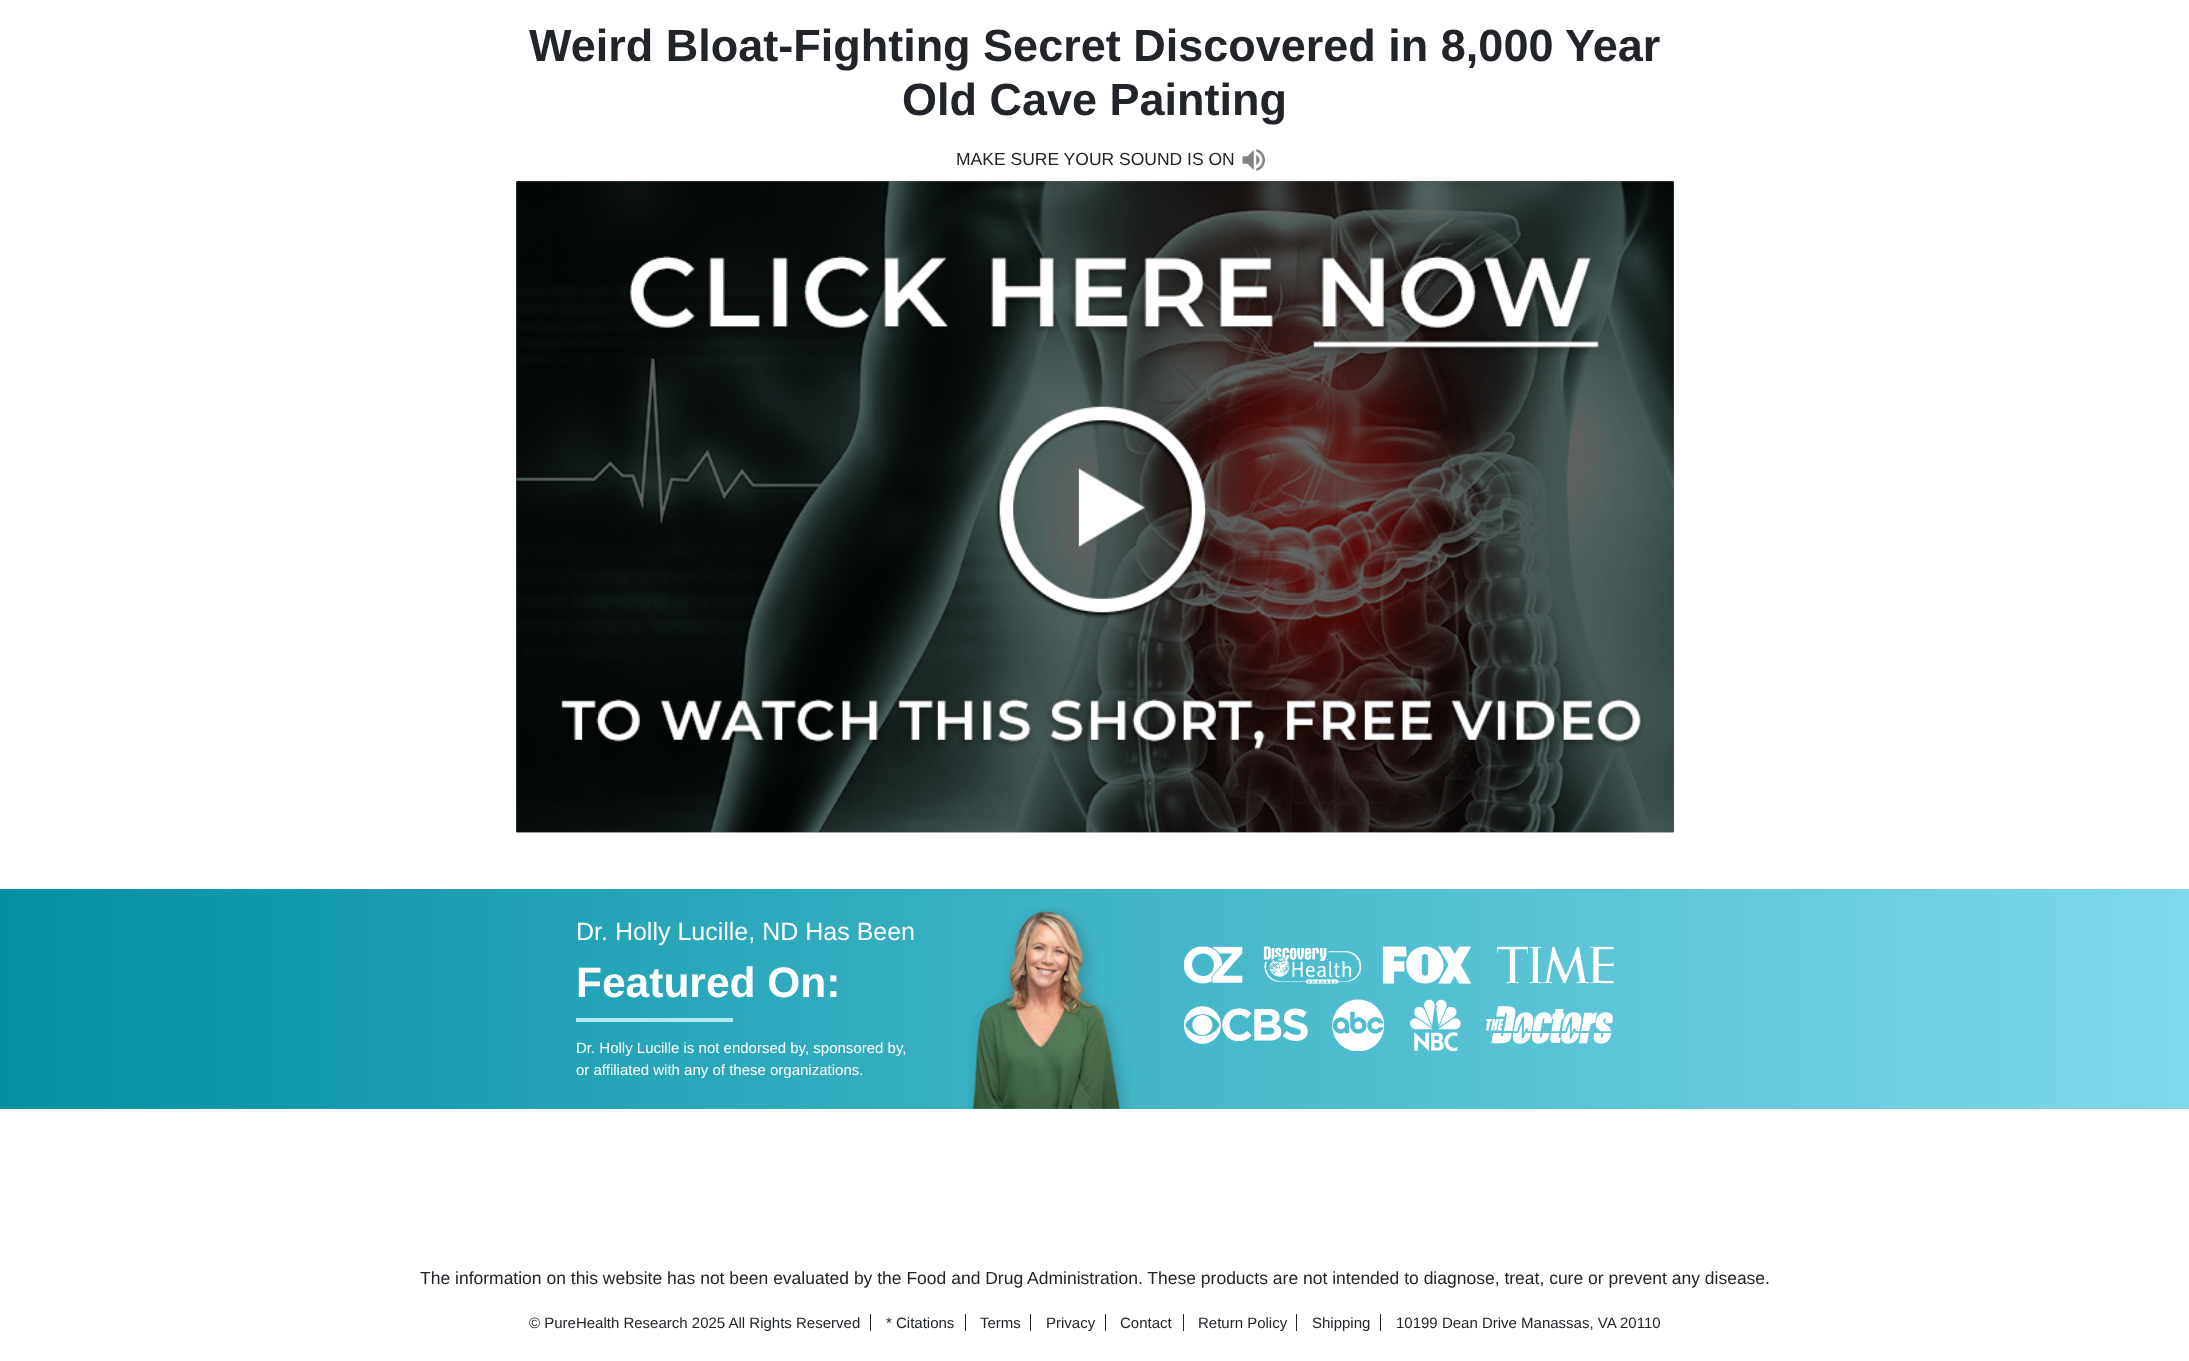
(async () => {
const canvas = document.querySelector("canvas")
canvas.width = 2189
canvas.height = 1361
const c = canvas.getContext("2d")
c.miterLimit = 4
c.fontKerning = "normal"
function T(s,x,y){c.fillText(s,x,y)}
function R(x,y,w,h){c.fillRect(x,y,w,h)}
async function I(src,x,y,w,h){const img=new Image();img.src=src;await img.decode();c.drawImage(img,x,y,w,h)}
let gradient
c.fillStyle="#fff"
R(0,0,2189,1361)
c.font="bold 45px Liberation Sans"
c.fillStyle="#212529"
T("Weird Bloat-Fighting Secret Discovered in 8,000 Year",529,61)
T("Old Cave Painting",902,115)
c.font="17.5px Liberation Sans"
T("MAKE SURE YOUR SOUND IS ON",956,165)
await I("1.png",1242,149,23,22)
await I("2.png",516,181,1158,652)
await I("3.png",516,181,1158,652)
gradient = c.createLinearGradient(0,999,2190,999)
gradient.addColorStop(0,"#028fa4")
gradient.addColorStop(1,"#7ed9ea")
c.fillStyle = gradient
R(0,889,2189,220)
c.font="25px Liberation Sans"
c.fillStyle="#fff"
T("Dr. Holly Lucille, ND Has Been",576,940)
c.font="bold 42.5px Liberation Sans"
T("Featured On:",576,997)
c.fillStyle="#b1e8f3"
R(576,1018,157,4)
c.font="15px Liberation Sans"
c.fillStyle="#fff"
T("Dr. Holly Lucille is not endorsed by, sponsored by,",576,1053)
T("or affiliated with any of these organizations.",576,1075)
await I("4.png",968,908,163,201)
await I("5.png",1184,946,430,105)
c.font="17.5px Liberation Sans"
c.fillStyle="#212529"
T("The information on this website has not been evaluated by the Food and Drug Administration. These products are not intended to diagnose, treat, cure or prevent any disease.",420,1284)
c.font="15px Liberation Sans"
T("© PureHealth Research 2025 All Rights Reserved",529,1328)
R(870,1314,1,17)
T("* Citations",886,1328)
R(965,1314,1,17)
T("Terms",980,1328)
R(1030,1314,1,17)
T("Privacy",1046,1328)
R(1105,1314,1,17)
T("Contact",1120,1328)
R(1183,1314,1,17)
T("Return Policy",1198,1328)
R(1296,1314,1,17)
T("Shipping",1312,1328)
R(1380,1314,1,17)
T("10199 Dean Drive Manassas, VA 20110",1396,1328)
})()
